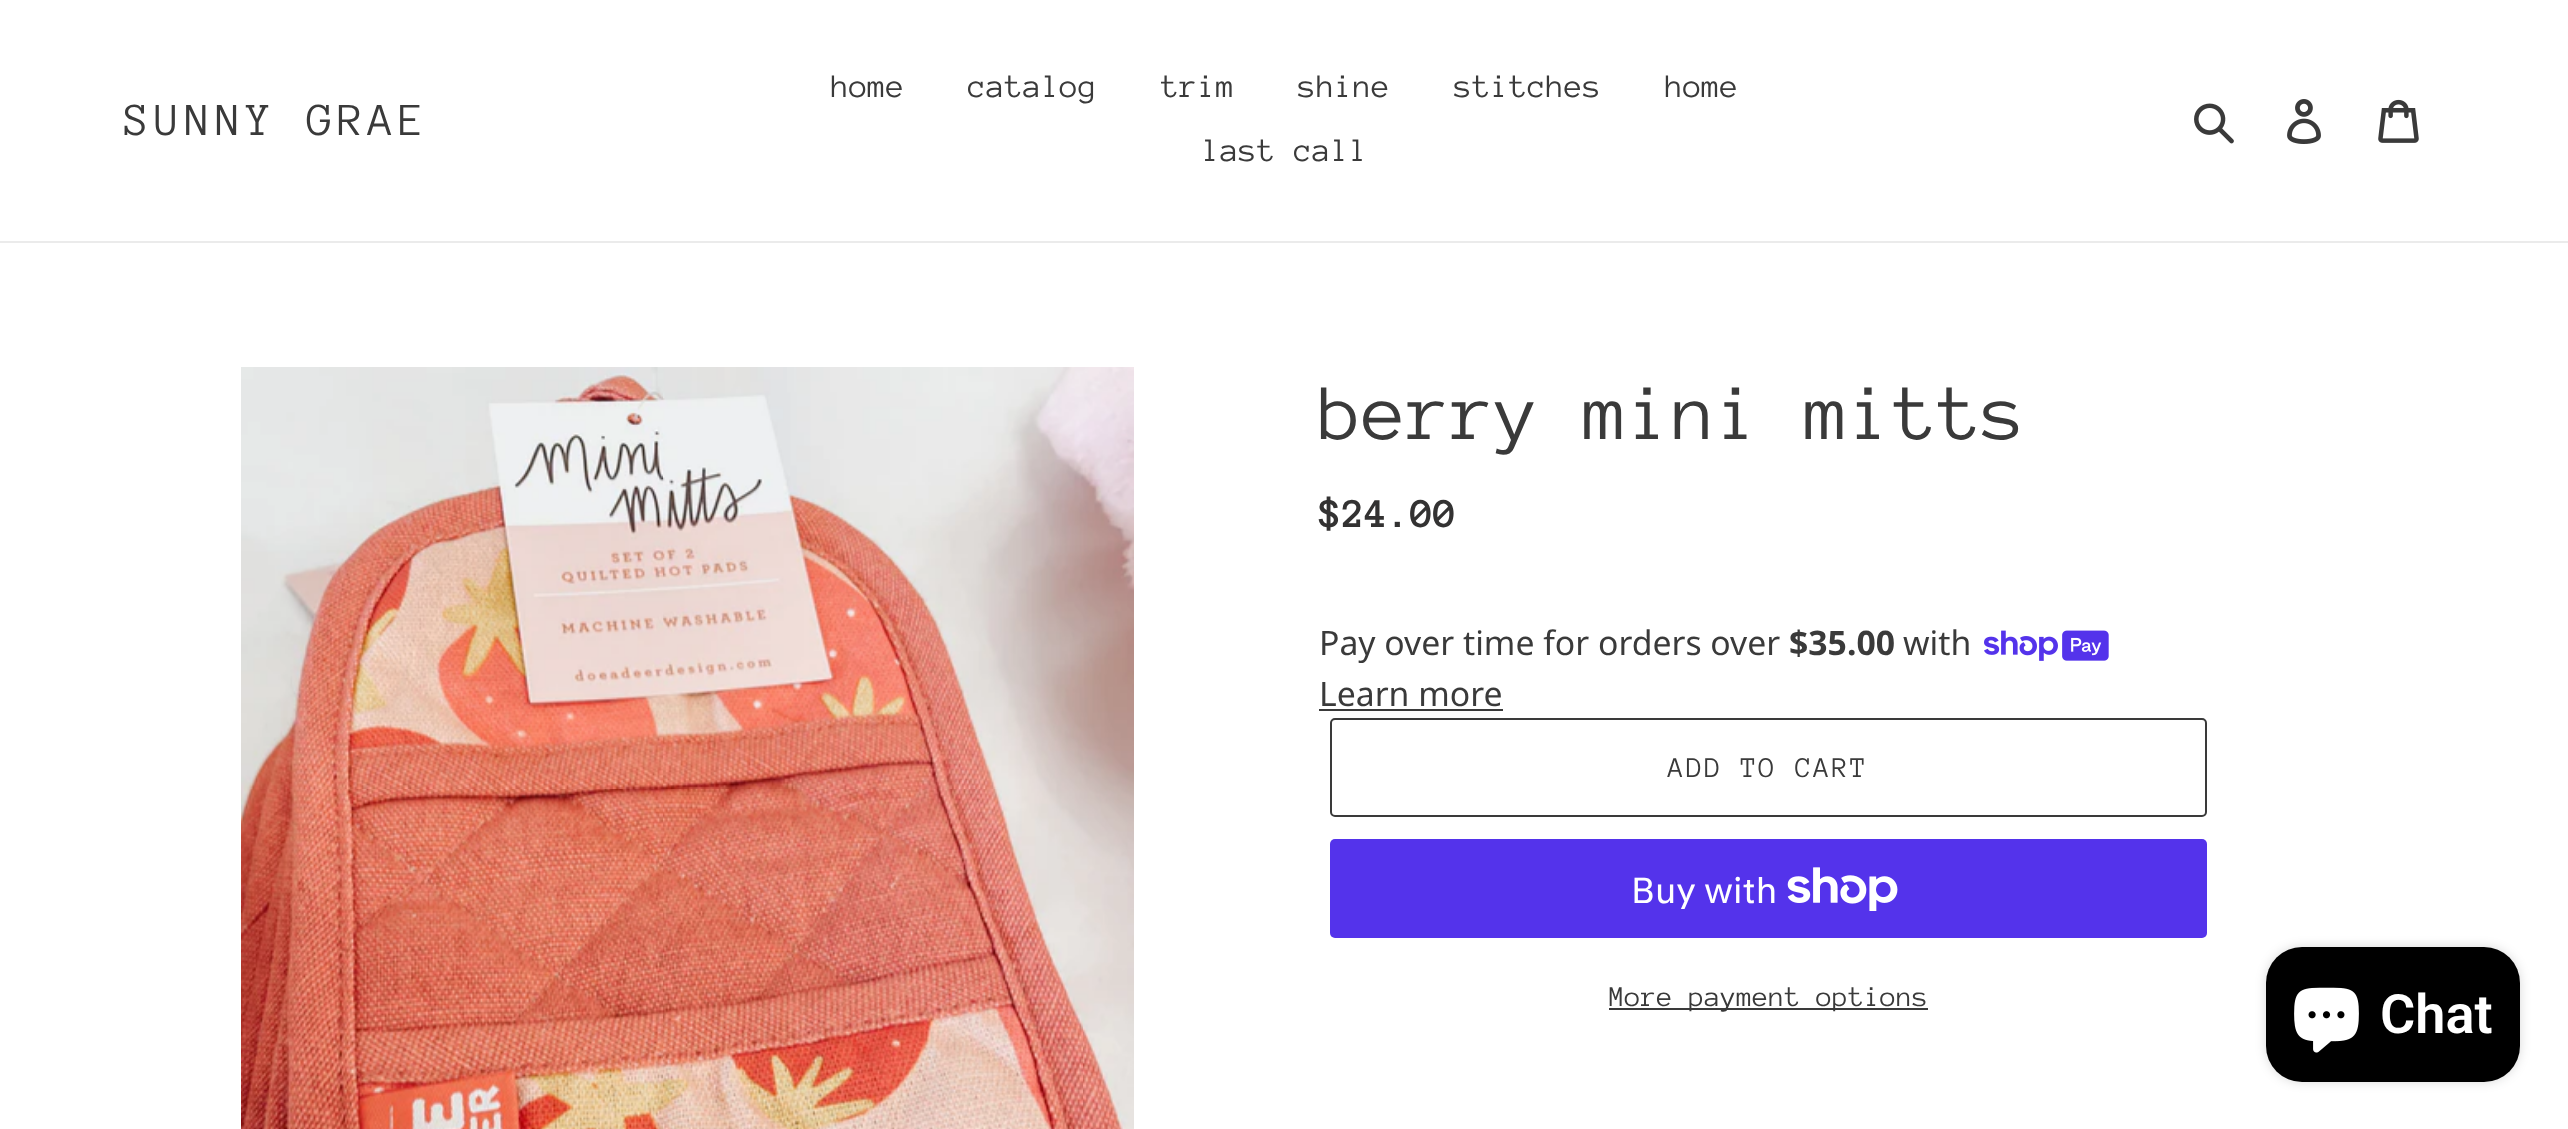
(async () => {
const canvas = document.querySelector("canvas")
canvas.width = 2568
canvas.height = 1129
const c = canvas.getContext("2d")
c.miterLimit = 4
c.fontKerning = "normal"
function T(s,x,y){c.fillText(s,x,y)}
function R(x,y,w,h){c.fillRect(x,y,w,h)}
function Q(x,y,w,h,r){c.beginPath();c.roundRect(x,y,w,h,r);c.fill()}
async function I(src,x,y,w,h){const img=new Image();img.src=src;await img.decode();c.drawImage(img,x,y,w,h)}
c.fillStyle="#fff"
R(0,0,2568,1129)
c.fillStyle="#ebebeb"
R(0,241,2568,2)
c.letterSpacing="4.75px"
c.font="47.25px Anonymous Pro"
c.fillStyle="#3a3a3a"
T("SUNNY GRAE",124,135)
c.letterSpacing="0px"
c.font="33.75px Anonymous Pro"
T("home",831,97)
T("catalog",968,97)
T("trim",1161,97)
T("shine",1298,97)
T("stitches",1454,97)
T("home",1665,97)
T("last call",1202,161)
await I("1.png",2194,103,40,41)
await I("2.png",2287,99,34,45)
await I("3.png",2378,99,41,44)
await I("4.png",241,367,893,762)
c.font="81px Anonymous Pro"
T("berry mini mitts",1319,439)
c.font="bold 42px Anonymous Pro"
c.fillStyle="#333232"
T("$24.00",1319,527)
c.font="33.75px Noto Sans"
c.fillStyle="#3a3a3a"
T("Pay over time for orders over",1319,655)
c.font="bold 33.75px Noto Sans"
T("$35.00",1789,655)
c.font="33.75px Noto Sans"
T("with",1903,655)
await I("5.png",1984,630,125,31)
T("Learn more",1319,706)
R(1319,709,184,2)
c.beginPath()
c.roundRect(1331,719,875,97,4)
c.strokeStyle="#3a3a3a"
c.lineWidth=2
c.stroke()
c.letterSpacing="2.25px"
c.font="29.25px Anonymous Pro"
T("ADD TO CART",1668,777)
c.fillStyle="#5433eb"
Q(1330,839,877,99,5)
c.letterSpacing="0px"
c.font="36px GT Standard"
c.fillStyle="#fff"
T("Buy with",1631,903)
await I("6.png",1787,867,111,44)
c.fillStyle="#3a3a3a"
R(1609,1008,319,2)
c.font="29.25px Anonymous Pro"
T("More payment options",1609,1006)
c.fillStyle="#00000026"
c.filter="blur(5.5px)"
c.beginPath()
c.roundRect(2266,947,254,135,36)
c.fill()
c.filter="none"
c.fillStyle="#000"
Q(2266,947,254,135,36)
await I("7.png",2294,987,65,66)
c.font="600 54px Roboto"
c.fillStyle="#fff"
T("Chat",2380,1033)
})()
